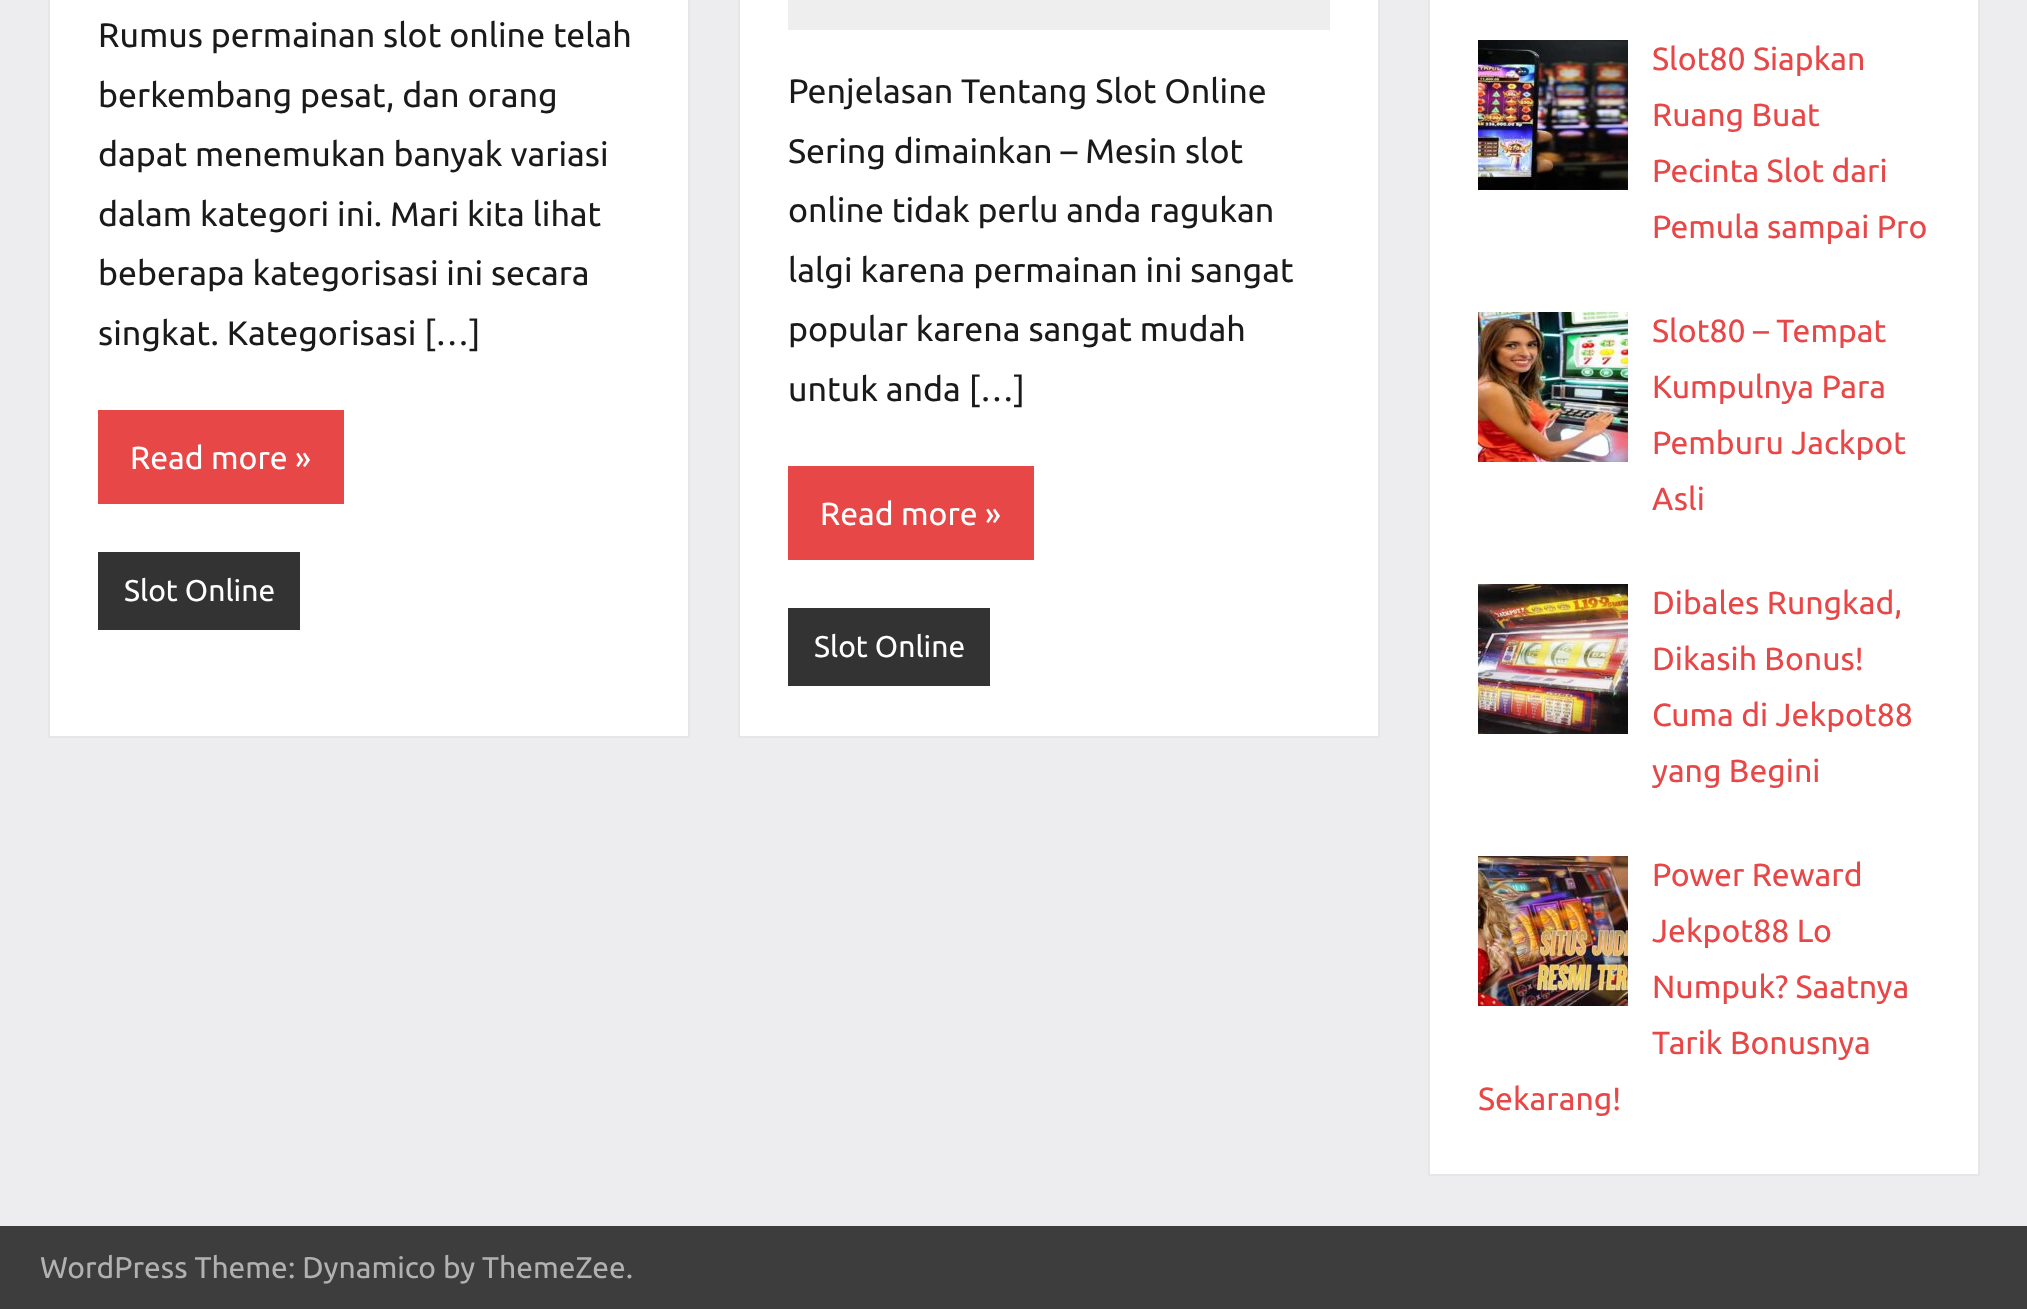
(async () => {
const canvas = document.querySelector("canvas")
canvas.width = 2027
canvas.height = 1309
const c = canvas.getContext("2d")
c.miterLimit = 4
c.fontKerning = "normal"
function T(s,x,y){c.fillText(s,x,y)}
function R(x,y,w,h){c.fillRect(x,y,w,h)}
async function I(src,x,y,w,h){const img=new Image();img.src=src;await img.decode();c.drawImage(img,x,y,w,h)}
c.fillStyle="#ededef"
R(0,0,2027,1309)
c.fillStyle="#fff"
c.beginPath()
c.rect(49,-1,640,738)
c.fill()
c.strokeStyle="#e6e6e6"
c.lineWidth=2
c.stroke()
c.font="34px Ubuntu"
c.fillStyle="#1a1a1a"
T("Rumus permainan slot online telah",98,47)
T("berkembang pesat, dan orang",98,107)
T("dapat menemukan banyak variasi",98,166)
T("dalam kategori ini. Mari kita lihat",98,226)
T("beberapa kategorisasi ini secara",98,285)
T("singkat. Kategorisasi […]",98,345)
c.fillStyle="#e84747"
R(98,410,246,94)
c.font="32px Ubuntu"
c.fillStyle="#fff"
T("Read more »",130,469)
c.fillStyle="#333"
R(98,552,202,78)
c.font="30px Ubuntu"
c.fillStyle="#fff"
T("Slot Online",124,601)
c.beginPath()
c.rect(739,-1,640,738)
c.fill()
c.stroke()
c.fillStyle="#eee"
R(788,0,542,30)
c.font="34px Ubuntu"
c.fillStyle="#1a1a1a"
T("Penjelasan Tentang Slot Online",788,103)
T("Sering dimainkan – Mesin slot",788,163)
T("online tidak perlu anda ragukan",788,222)
T("lalgi karena permainan ini sangat",788,282)
T("popular karena sangat mudah",788,341)
T("untuk anda […]",788,401)
c.fillStyle="#e84747"
R(788,466,246,94)
c.font="32px Ubuntu"
c.fillStyle="#fff"
T("Read more »",820,525)
c.fillStyle="#333"
R(788,608,202,78)
c.font="30px Ubuntu"
c.fillStyle="#fff"
T("Slot Online",814,657)
c.beginPath()
c.rect(1429,-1,550,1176)
c.fill()
c.stroke()
await I("1.png",1478,40,150,150)
c.font="32px Ubuntu"
c.fillStyle="#e84747"
T("Slot80 Siapkan",1652,70)
T("Ruang Buat",1652,126)
T("Pecinta Slot dari",1652,182)
T("Pemula sampai Pro",1652,238)
await I("2.png",1478,312,150,150)
T("Slot80 – Tempat",1652,342)
T("Kumpulnya Para",1652,398)
T("Pemburu Jackpot",1652,454)
T("Asli",1652,510)
await I("3.png",1478,584,150,150)
T("Dibales Rungkad,",1652,614)
T("Dikasih Bonus!",1652,670)
T("Cuma di Jekpot88",1652,726)
T("yang Begini",1652,782)
await I("4.png",1478,856,150,150)
T("Power Reward",1652,886)
T("Jekpot88 Lo",1652,942)
T("Numpuk? Saatnya",1652,998)
T("Tarik Bonusnya",1652,1054)
T("Sekarang!",1478,1110)
c.fillStyle="#3d3d3d"
R(0,1226,2027,83)
c.font="30px Ubuntu"
c.fillStyle="#b1b1b1"
T("WordPress Theme: Dynamico by ThemeZee.",40,1278)
})()
